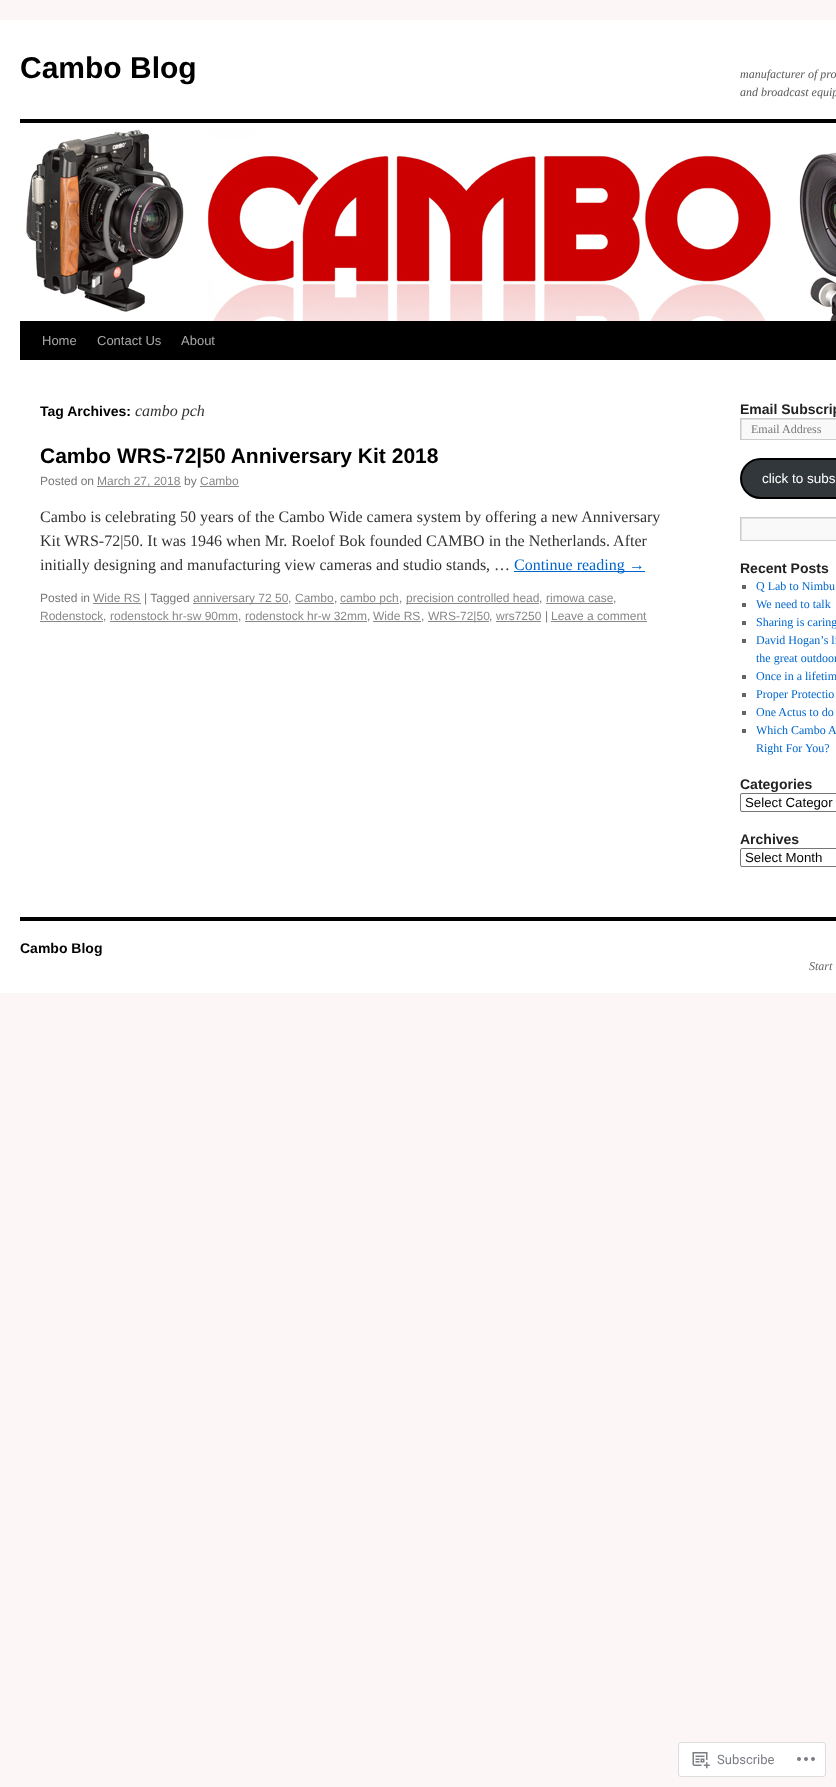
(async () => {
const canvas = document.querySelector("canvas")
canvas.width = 836
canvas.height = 1787
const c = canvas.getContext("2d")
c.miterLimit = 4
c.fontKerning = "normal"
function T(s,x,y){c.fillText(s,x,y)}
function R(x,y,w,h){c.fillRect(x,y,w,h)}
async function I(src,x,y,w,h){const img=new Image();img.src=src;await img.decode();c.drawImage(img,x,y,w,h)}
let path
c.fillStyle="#fdf6f6"
R(0,0,836,1787)
c.fillStyle="#fff"
R(0,20,836,973)
c.font="bold 30px Liberation Sans"
c.fillStyle="#000"
T("Cambo Blog",20,78)
c.font="italic 12px Liberation Serif"
c.fillStyle="#595959"
T("manufacturer of pro",740,78)
T("and broadcast equip",740,96)
c.fillStyle="#000"
R(20,119,816,4)
R(20,321,816,39)
await I("1.png",26,129,810,192)
c.font="13px Liberation Sans"
c.fillStyle="#aaa"
T("Home",42,345)
T("Contact Us",97,345)
T("About",181,345)
c.font="bold 14px Liberation Sans"
c.fillStyle="#000"
T("Tag Archives:",40,416)
c.font="italic 16px Liberation Serif"
c.fillStyle="#333"
T("cambo pch",135,416)
c.font="bold 21px Liberation Sans"
c.fillStyle="#000"
T("Cambo WRS-72|50 Anniversary Kit 2018",40,463)
c.font="12px Liberation Sans"
c.fillStyle="#777"
T("Posted on",40,485)
c.fillStyle="#888"
R(97,486,84,1)
T("March 27, 2018",97,485)
c.fillStyle="#777"
T("by",184,485)
c.fillStyle="#888"
T("Cambo",200,485)
R(200,486,39,1)
c.font="16px Liberation Serif"
c.fillStyle="#333"
T("Cambo is celebrating 50 years of the Cambo Wide camera system by offering a new Anniversary",40,522)
T("Kit WRS-72|50. It was 1946 when Mr. Roelof Bok founded CAMBO in the Netherlands. After",40,546)
T("initially designing and manufacturing view cameras and studio stands, …",40,570)
c.fillStyle="#06c"
R(514,571,131,1)
T("Continue reading →",514,570)
c.font="12px Liberation Sans"
c.fillStyle="#777"
T("Posted in",40,602)
c.fillStyle="#888"
T("Wide RS",93,602)
R(93,603,48,1)
c.fillStyle="#777"
T("| Tagged",144,602)
c.fillStyle="#888"
R(193,603,95,1)
T("anniversary 72 50",193,602)
c.fillStyle="#777"
T(",",288,602)
c.fillStyle="#888"
T("Cambo",295,602)
c.fillStyle="#777"
T(",",334,602)
c.fillStyle="#888"
R(295,603,39,1)
R(340,603,59,1)
T("cambo pch",340,602)
c.fillStyle="#777"
T(",",399,602)
c.fillStyle="#888"
R(406,603,133,1)
T("precision controlled head",406,602)
c.fillStyle="#777"
T(",",539,602)
c.fillStyle="#888"
T("rimowa case",546,602)
c.fillStyle="#777"
T(",",613,602)
c.fillStyle="#888"
R(546,603,67,1)
T("Rodenstock",40,620)
c.fillStyle="#777"
T(",",103,620)
c.fillStyle="#888"
R(40,621,63,1)
T("rodenstock hr-sw 90mm",110,620)
c.fillStyle="#777"
T(",",238,620)
c.fillStyle="#888"
R(110,621,128,1)
T("rodenstock hr-w 32mm",245,620)
c.fillStyle="#777"
T(",",367,620)
c.fillStyle="#888"
R(245,621,122,1)
T("Wide RS",373,620)
c.fillStyle="#777"
T(",",421,620)
c.fillStyle="#888"
R(373,621,48,1)
R(428,621,61,1)
T("WRS-72|50",428,620)
c.fillStyle="#777"
T(",",489,620)
c.fillStyle="#888"
R(496,621,45,1)
T("wrs7250",496,620)
c.fillStyle="#777"
T("|",545,620)
c.fillStyle="#888"
T("Leave a comment",551,620)
R(551,621,96,1)
c.font="bold 14px Liberation Sans"
c.fillStyle="#222"
T("Email Subscrip",740,414)
c.fillStyle="#f9f9f9"
R(742,420,94,19)
c.save()
c.beginPath()
c.rect(741,419,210,20)
c.clip()
c.fillStyle="#e0e0e0"
path = new Path2D("M642 320h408v218h-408zm100 100h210v20h-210z")
c.fill(path,"evenodd")
c.restore()
c.strokeStyle="#ccc"
c.strokeRect(740.5,418.5,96,21)
c.font="12px Liberation Serif"
c.fillStyle="#777"
T("Email Address",751,433)
c.fillStyle="#32373c"
c.beginPath()
c.roundRect(741,459,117,39,19.5)
c.fill()
c.strokeStyle="#000"
c.lineWidth=2
c.stroke()
c.font="13.5px Liberation Sans"
c.fillStyle="#fff"
T("click to subs",762,483)
c.fillStyle="#f9f9f9"
R(742,519,94,21)
c.save()
c.beginPath()
c.rect(741,518,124,22)
c.clip()
c.fillStyle="#e0e0e0"
path = new Path2D("M642 419h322v220h-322zm100 100h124v22h-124z")
c.fill(path,"evenodd")
c.restore()
c.strokeStyle="#ccc"
c.lineWidth=1
c.strokeRect(740.5,517.5,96,23)
c.font="bold 14px Liberation Sans"
c.fillStyle="#222"
T("Recent Posts",740,573)
c.fillStyle="#666"
R(742,585,4,4)
c.font="12px Liberation Serif"
c.fillStyle="#06c"
T("Q Lab to Nimbu",756,590)
c.fillStyle="#666"
R(742,603,4,4)
c.fillStyle="#06c"
T("We need to talk",756,608)
c.fillStyle="#666"
R(742,621,4,4)
c.fillStyle="#06c"
T("Sharing is caring",756,626)
c.fillStyle="#666"
R(742,639,4,4)
c.fillStyle="#06c"
T("David Hogan’s li",756,644)
T("the great outdoor",756,662)
c.fillStyle="#666"
R(742,675,4,4)
c.fillStyle="#06c"
T("Once in a lifetim",756,680)
c.fillStyle="#666"
R(742,693,4,4)
c.fillStyle="#06c"
T("Proper Protectio",756,698)
c.fillStyle="#666"
R(742,711,4,4)
c.fillStyle="#06c"
T("One Actus to do",756,716)
c.fillStyle="#666"
R(742,729,4,4)
c.fillStyle="#06c"
T("Which Cambo A",756,734)
T("Right For You?",756,752)
c.font="bold 14px Liberation Sans"
c.fillStyle="#222"
T("Categories",740,789)
c.beginPath()
c.roundRect(740.5,793.5,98,18,1.5)
c.strokeStyle="#767676"
c.stroke()
c.font="13.25px Liberation Sans"
c.fillStyle="#000"
T("Select Categor",745,807)
c.font="bold 14px Liberation Sans"
c.fillStyle="#222"
T("Archives",740,844)
c.beginPath()
c.roundRect(740.5,848.5,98,18,1.5)
c.stroke()
c.font="13.25px Liberation Sans"
c.fillStyle="#000"
T("Select Month",745,862)
R(20,917,816,4)
c.font="bold 14px Liberation Sans"
T("Cambo Blog",20,953)
c.font="italic 12px Liberation Serif"
c.fillStyle="#666"
T("Start",809,970)
c.fillStyle="#fff"
c.beginPath()
c.roundRect(678.5,1742.5,147,34,2.5)
c.fill()
c.strokeStyle="#ddddde"
c.stroke()
await I("2.png",692,1752,18,17)
c.font="13px Roboto"
c.fillStyle="#7b7e84"
T("Subscribe",717,1764)
await I("3.png",797,1757,18,4)
})()
